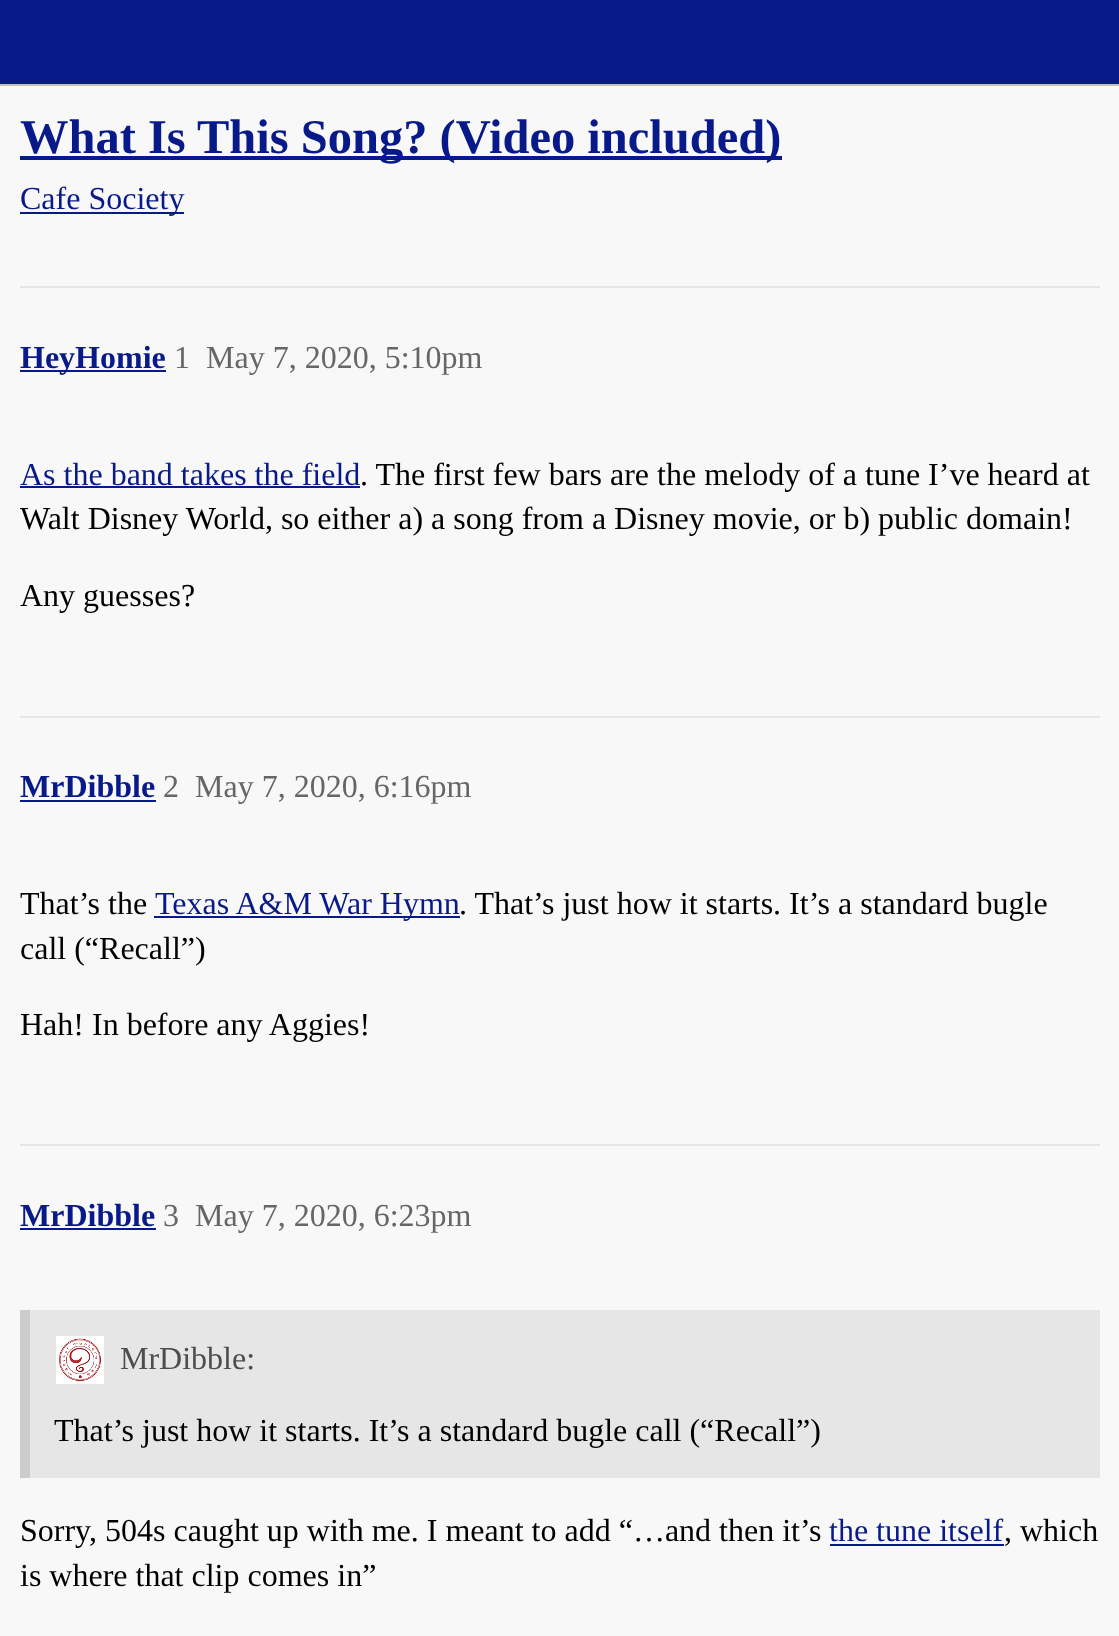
(async () => {
const canvas = document.querySelector("canvas")
canvas.width = 1119
canvas.height = 1636
const c = canvas.getContext("2d")
c.miterLimit = 4
c.fontKerning = "normal"
function T(s,x,y){c.fillText(s,x,y)}
function R(x,y,w,h){c.fillRect(x,y,w,h)}
async function I(src,x,y,w,h){const img=new Image();img.src=src;await img.decode();c.drawImage(img,x,y,w,h)}
c.fillStyle="#f8f8f8"
R(0,0,1119,1636)
c.fillStyle="#081a8a"
R(0,0,1119,84)
c.fillStyle="#bdbed3"
R(0,84,1119,2)
c.fillStyle="#081a8a"
R(20,156,762,4)
c.font="bold 48.5px Liberation Serif"
T("What Is This Song? (Video included)",20,153)
R(20,212,164,2)
c.font="32px Liberation Serif"
T("Cafe Society",20,209)
c.fillStyle="#e6e6e6"
R(20,286,1080,2)
c.fillStyle="#081a8a"
R(20,370,146,2)
c.font="bold 32px Liberation Serif"
T("HeyHomie",20,368)
c.font="32px Liberation Serif"
c.fillStyle="#666"
T("1",174,368)
T("May 7, 2020, 5:10pm",206,368)
c.fillStyle="#081a8a"
T("As the band takes the field",20,485)
R(20,486,340,2)
c.fillStyle="#000"
T(". The first few bars are the melody of a tune I’ve heard at",360,485)
T("Walt Disney World, so either a) a song from a Disney movie, or b) public domain!",20,529)
T("Any guesses?",20,606)
c.fillStyle="#e6e6e6"
R(20,716,1080,2)
c.font="bold 32px Liberation Serif"
c.fillStyle="#081a8a"
T("MrDibble",20,797)
R(20,800,136,2)
c.font="32px Liberation Serif"
c.fillStyle="#666"
T("2",163,797)
T("May 7, 2020, 6:16pm",195,797)
c.fillStyle="#000"
T("That’s the",20,914)
c.fillStyle="#081a8a"
R(154,916,306,2)
T("Texas A&M War Hymn",155,914)
c.fillStyle="#000"
T(". That’s just how it starts. It’s a standard bugle",459,914)
T("call (“Recall”)",20,959)
T("Hah! In before any Aggies!",20,1035)
c.fillStyle="#e6e6e6"
R(20,1144,1080,2)
c.font="bold 32px Liberation Serif"
c.fillStyle="#081a8a"
T("MrDibble",20,1226)
R(20,1228,136,2)
c.font="32px Liberation Serif"
c.fillStyle="#666"
T("3",163,1226)
T("May 7, 2020, 6:23pm",195,1226)
c.fillStyle="#e6e6e6"
R(30,1310,1070,168)
c.fillStyle="#ccc"
R(20,1310,10,168)
await I("1.png",56,1336,48,48)
c.fillStyle="#4d4d4d"
T("MrDibble:",120,1369)
c.fillStyle="#000"
T("That’s just how it starts. It’s a standard bugle call (“Recall”)",54,1441)
T("Sorry, 504s caught up with me. I meant to add “…and then it’s",20,1541)
c.fillStyle="#081a8a"
T("the tune itself",829,1541)
R(830,1544,174,2)
c.fillStyle="#000"
T(", which",1004,1541)
T("is where that clip comes in”",20,1586)
})()
